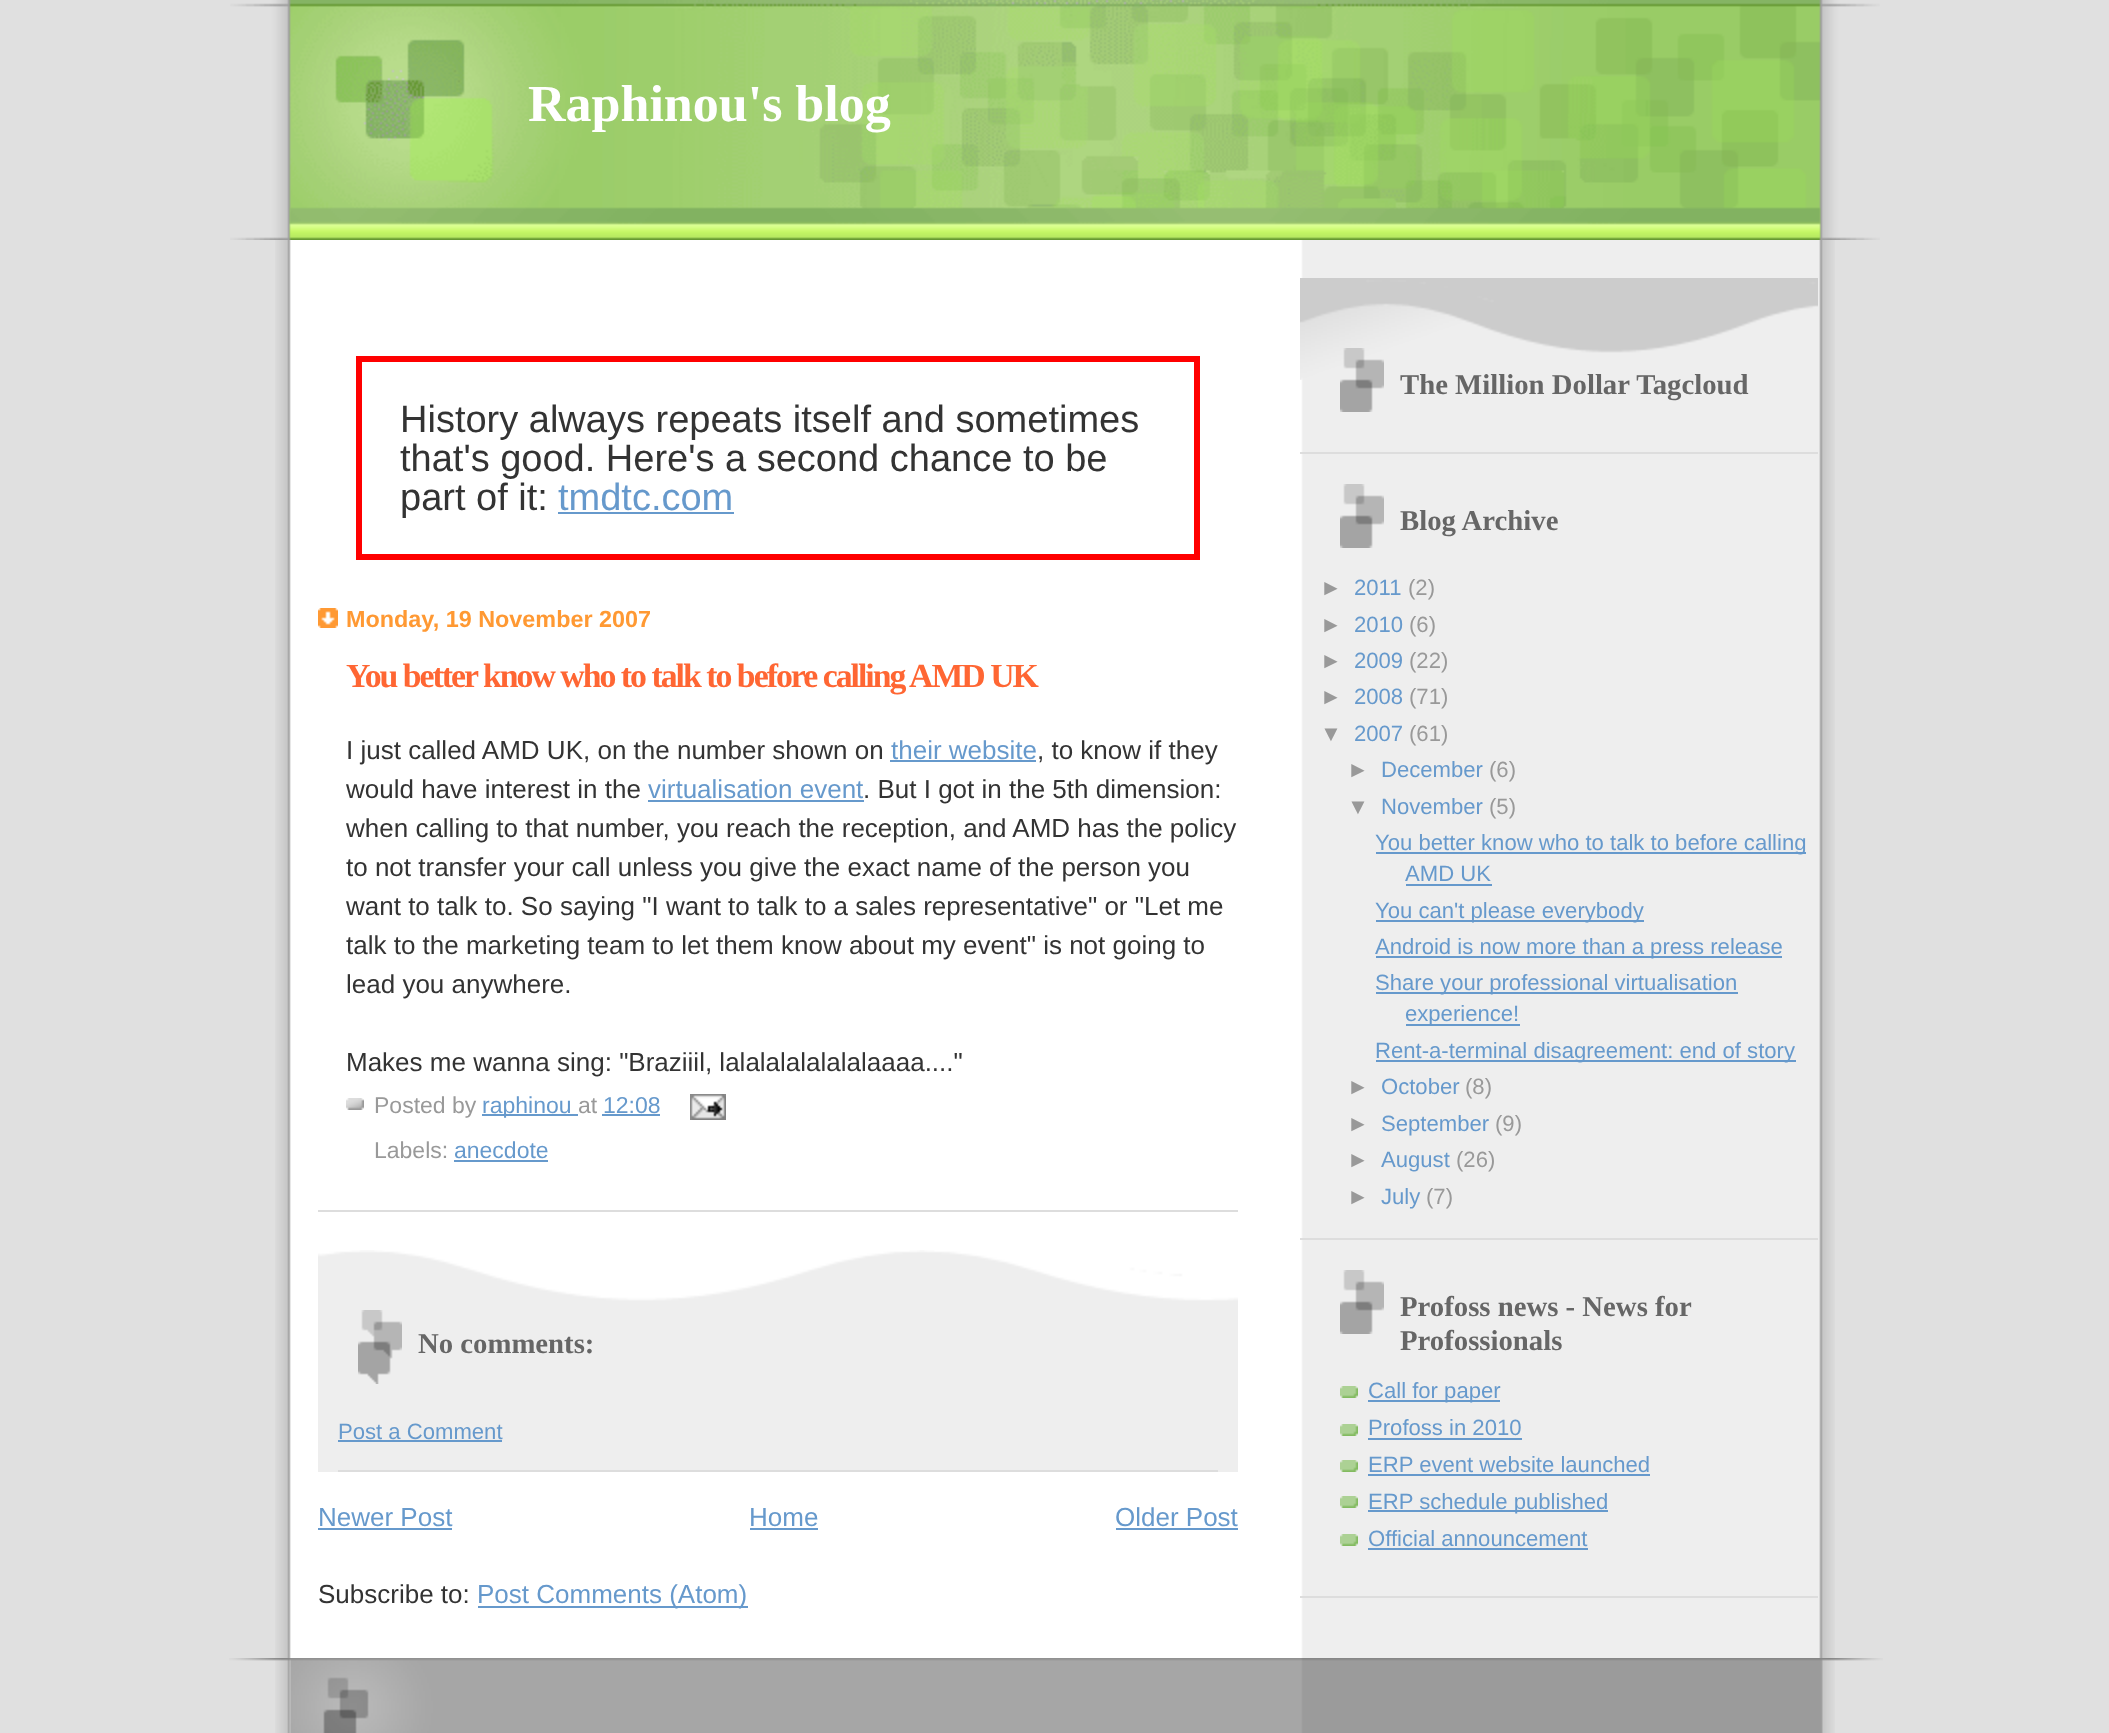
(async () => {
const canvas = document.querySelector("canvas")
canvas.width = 2109
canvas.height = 1733
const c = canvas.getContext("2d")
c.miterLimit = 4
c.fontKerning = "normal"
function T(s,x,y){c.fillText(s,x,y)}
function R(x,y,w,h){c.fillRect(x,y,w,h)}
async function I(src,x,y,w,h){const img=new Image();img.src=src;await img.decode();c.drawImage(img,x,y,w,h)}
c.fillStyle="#e0e0e0"
R(0,0,2109,1733)
await I("1.png",275,240,1560,1493)
await I("2.png",230,0,1650,239)
await I("3.png",230,207,1650,33)
c.font="bold 52px Liberation Serif"
c.fillStyle="#fff"
T("Raphinou's blog",528,121)
c.strokeStyle="#f00"
c.lineWidth=6
c.strokeRect(359,359,838,198)
c.font="38px Liberation Sans"
c.fillStyle="#333"
T("History always repeats itself and sometimes",400,432)
T("that's good. Here's a second chance to be",400,471)
T("part of it:",400,510)
c.fillStyle="#69c"
T("tmdtc.com",558,510)
R(558,512,176,2)
await I("4.png",318,608,20,20)
c.font="bold 23.4px Liberation Sans"
c.fillStyle="#f93"
T("Monday, 19 November 2007",346,627)
c.fillStyle="#ddd"
R(318,1210,920,2)
c.letterSpacing="-2px"
c.font="bold 33.8px Liberation Serif"
c.fillStyle="#f63"
T("You better know who to talk to before calling AMD UK",346,687)
c.letterSpacing="0px"
c.font="26px Liberation Sans"
c.fillStyle="#333"
T("I just called AMD UK, on the number shown on",346,759)
c.fillStyle="#69c"
T("their website",891,759)
R(890,760,146,2)
c.fillStyle="#333"
T(", to know if they",1037,759)
T("would have interest in the",346,798)
c.fillStyle="#69c"
T("virtualisation event",648,798)
R(648,800,216,2)
c.fillStyle="#333"
T(". But I got in the 5th dimension:",863,798)
T("when calling to that number, you reach the reception, and AMD has the policy",346,837)
T("to not transfer your call unless you give the exact name of the person you",346,876)
T("want to talk to. So saying \"I want to talk to a sales representative\" or \"Let me",346,915)
T("talk to the marketing team to let them know about my event\" is not going to",346,954)
T("lead you anywhere.",346,993)
T("Makes me wanna sing: \"Braziiil, lalalalalalalalaaaa....\"",346,1071)
await I("5.png",346,1098,18,12)
c.font="23px Liberation Sans"
c.fillStyle="#999"
T("Posted by",374,1113)
c.fillStyle="#69c"
R(482,1114,96,2)
T("raphinou",482,1113)
c.fillStyle="#999"
T("at",578,1113)
c.fillStyle="#69c"
T("12:08",603,1113)
R(602,1114,58,2)
await I("6.png",690,1094,36,26)
c.fillStyle="#999"
T("Labels:",374,1158)
c.fillStyle="#69c"
T("anecdote",454,1158)
R(454,1160,94,2)
c.fillStyle="#eee"
R(318,1251,920,221)
await I("7.png",318,1250,920,51)
await I("8.png",358,1310,44,74)
c.font="bold 28.75px Liberation Serif"
c.fillStyle="#666"
T("No comments:",418,1353)
c.fillStyle="#ddd"
R(338,1470,880,2)
c.font="22.1px Liberation Sans"
c.fillStyle="#69c"
T("Post a Comment",338,1439)
R(338,1440,164,2)
c.font="26px Liberation Sans"
T("Newer Post",318,1526)
R(318,1528,134,2)
T("Home",749,1526)
R(750,1528,68,2)
T("Older Post",1115,1526)
R(1116,1528,122,2)
c.fillStyle="#333"
T("Subscribe to:",318,1603)
c.fillStyle="#69c"
R(478,1606,270,2)
T("Post Comments (Atom)",477,1603)
await I("9.png",1300,278,518,102)
c.fillStyle="#ddd"
R(1300,452,518,2)
await I("10.png",1340,348,44,64)
c.font="bold 28.75px Liberation Serif"
c.fillStyle="#666"
T("The Million Dollar Tagcloud",1400,394)
c.fillStyle="#ddd"
R(1300,1238,518,2)
await I("11.png",1340,484,44,64)
c.fillStyle="#666"
T("Blog Archive",1400,530)
c.font="22.1px Liberation Sans"
c.fillStyle="#999"
T("►",1320,595)
c.fillStyle="#69c"
T("2011",1354,595)
c.fillStyle="#999"
T("(2)",1408,595)
T("►",1320,632)
c.fillStyle="#69c"
T("2010",1354,632)
c.fillStyle="#999"
T("(6)",1409,632)
T("►",1320,668)
c.fillStyle="#69c"
T("2009",1354,668)
c.fillStyle="#999"
T("(22)",1409,668)
T("►",1320,704)
c.fillStyle="#69c"
T("2008",1354,704)
c.fillStyle="#999"
T("(71)",1409,704)
T("▼",1320,741)
c.fillStyle="#69c"
T("2007",1354,741)
c.fillStyle="#999"
T("(61)",1409,741)
T("►",1347,777)
c.fillStyle="#69c"
T("December",1381,777)
c.fillStyle="#999"
T("(6)",1489,777)
T("▼",1347,814)
c.fillStyle="#69c"
T("November",1381,814)
c.fillStyle="#999"
T("(5)",1489,814)
c.fillStyle="#69c"
R(1376,852,430,2)
T("You better know who to talk to before calling",1375,850)
T("AMD UK",1405,881)
R(1406,884,86,2)
R(1376,920,268,2)
T("You can't please everybody",1375,918)
R(1376,956,406,2)
T("Android is now more than a press release",1375,954)
R(1376,992,362,2)
T("Share your professional virtualisation",1375,990)
R(1406,1024,114,2)
T("experience!",1405,1021)
R(1376,1060,420,2)
T("Rent-a-terminal disagreement: end of story",1375,1058)
c.fillStyle="#999"
T("►",1347,1094)
c.fillStyle="#69c"
T("October",1381,1094)
c.fillStyle="#999"
T("(8)",1465,1094)
T("►",1347,1131)
c.fillStyle="#69c"
T("September",1381,1131)
c.fillStyle="#999"
T("(9)",1495,1131)
T("►",1347,1167)
c.fillStyle="#69c"
T("August",1381,1167)
c.fillStyle="#999"
T("(26)",1456,1167)
T("►",1347,1204)
c.fillStyle="#69c"
T("July",1381,1204)
c.fillStyle="#999"
T("(7)",1426,1204)
c.fillStyle="#ddd"
R(1300,1596,518,2)
await I("11.png",1340,1270,44,64)
c.font="bold 28.75px Liberation Serif"
c.fillStyle="#666"
T("Profoss news - News for",1400,1316)
T("Profossionals",1400,1350)
await I("12.png",1340,1386,18,12)
c.fillStyle="#69c"
R(1368,1400,132,2)
c.font="22.1px Liberation Sans"
T("Call for paper",1368,1398)
await I("12.png",1340,1424,18,12)
T("Profoss in 2010",1368,1435)
R(1368,1438,154,2)
await I("12.png",1340,1460,18,12)
T("ERP event website launched",1368,1472)
R(1368,1474,282,2)
await I("12.png",1340,1496,18,12)
R(1368,1510,240,2)
T("ERP schedule published",1368,1509)
await I("12.png",1340,1534,18,12)
T("Official announcement",1368,1546)
R(1368,1548,220,2)
await I("13.png",229,1658,1654,75)
})()
